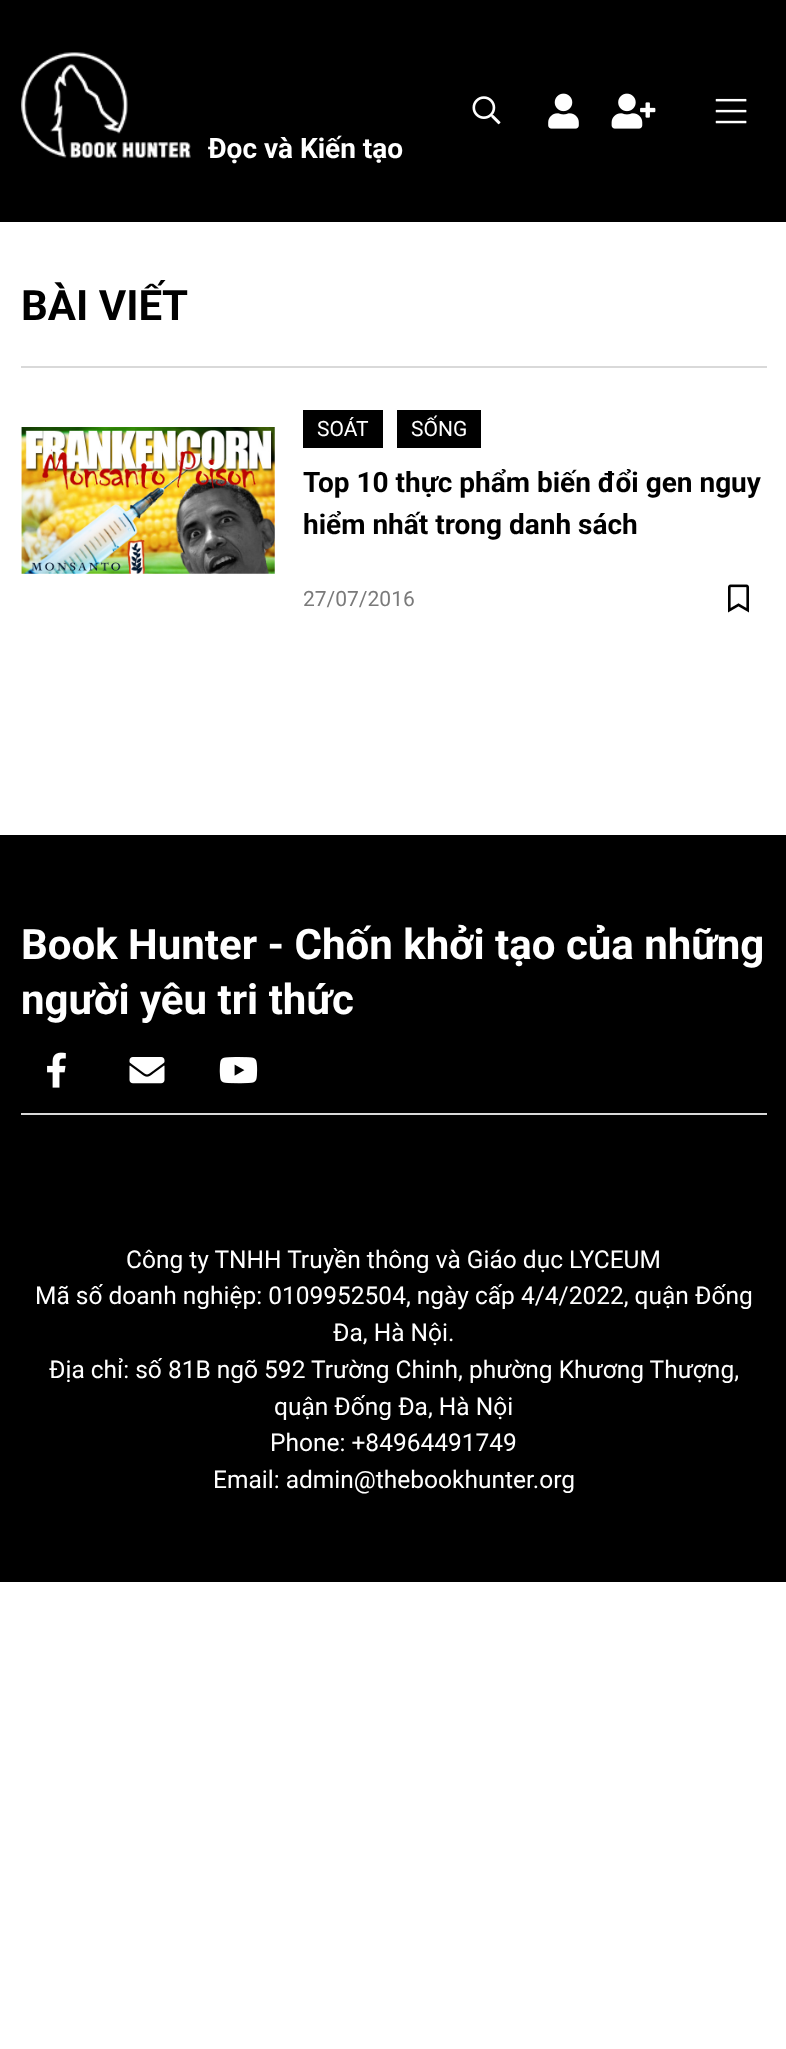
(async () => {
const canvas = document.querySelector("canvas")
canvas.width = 786
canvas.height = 2049
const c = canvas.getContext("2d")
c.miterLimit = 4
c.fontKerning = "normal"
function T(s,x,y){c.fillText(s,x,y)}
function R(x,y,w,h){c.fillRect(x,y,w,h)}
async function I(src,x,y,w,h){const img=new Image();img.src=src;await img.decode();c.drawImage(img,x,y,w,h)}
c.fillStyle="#fff"
R(0,0,786,2049)
c.fillStyle="#000"
R(0,0,786,222)
await I("1.png",472,96,29,29)
await I("2.png",548,93,31,36)
await I("3.png",611,93,45,36)
await I("4.png",715,98,32,26)
await I("5.png",21,52,170,106)
c.font="bold 28px Roboto"
c.fillStyle="#fff"
T("Đọc và Kiến tạo",208,158)
c.fillStyle="#d9d9d9"
R(21,366,746,2)
c.font="bold 42px Roboto"
c.fillStyle="#000"
T("BÀI VIẾT",21,320)
await I("6.png",21,427,254,147)
R(303,410,80,38)
c.font="21px Roboto"
c.fillStyle="#fff"
T("SOÁT",317,436)
c.fillStyle="#000"
R(397,410,84,38)
c.fillStyle="#fff"
T("SỐNG",411,436)
c.font="bold 28px Roboto"
c.fillStyle="#000"
T("Top 10 thực phẩm biến đổi gen nguy",303,492)
T("hiểm nhất trong danh sách",303,534)
c.font="21px Roboto"
c.fillStyle="#7a7a7a"
T("27/07/2016",303,606)
await I("7.png",728,584,21,29)
c.fillStyle="#000"
R(0,835,786,747)
c.fillStyle="#d9d9d9"
R(21,1113,746,2)
c.font="bold 42px Roboto"
c.fillStyle="#fff"
T("Book Hunter - Chốn khởi tạo của những",21,959)
T("người yêu tri thức",21,1014)
await I("8.png",47,1052,19,36)
await I("9.png",129,1057,36,27)
await I("10.png",219,1057,39,27)
c.font="24.5px Roboto"
T("Công ty TNHH Truyền thông và Giáo dục LYCEUM",126,1268)
T("Mã số doanh nghiệp: 0109952504, ngày cấp 4/4/2022, quận Đống",35,1304)
T("Đa, Hà Nội.",333,1341)
T("Địa chỉ: số 81B ngõ 592 Trường Chinh, phường Khương Thượng,",49,1378)
T("quận Đống Đa, Hà Nội",274,1415)
T("Phone: +84964491749",270,1451)
T("Email: admin@thebookhunter.org",213,1488)
})()
